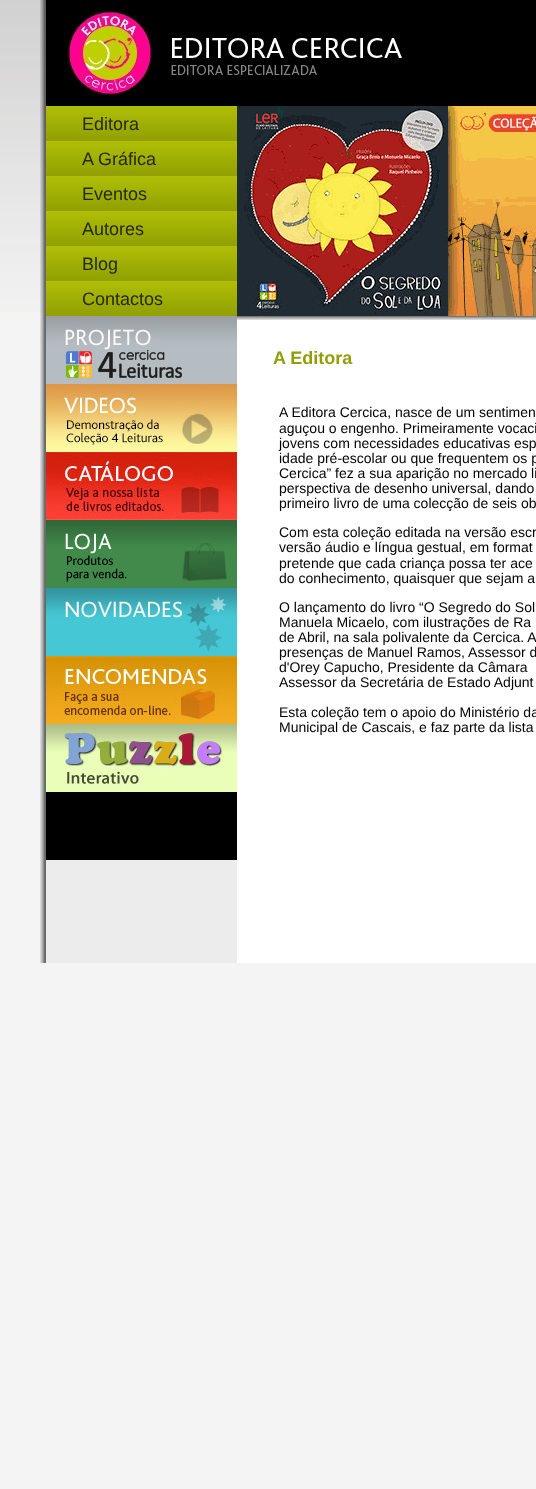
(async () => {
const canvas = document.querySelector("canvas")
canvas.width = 536
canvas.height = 1489
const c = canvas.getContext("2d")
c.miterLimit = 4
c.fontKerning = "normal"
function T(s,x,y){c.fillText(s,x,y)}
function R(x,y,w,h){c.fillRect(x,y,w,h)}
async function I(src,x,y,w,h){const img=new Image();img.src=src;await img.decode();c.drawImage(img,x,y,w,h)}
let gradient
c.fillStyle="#f4f4f4"
R(0,0,536,1489)
await I("1.png",0,0,46,312)
await I("2.png",40,0,6,963)
c.fillStyle="#ececec"
R(46,860,191,103)
c.fillStyle="#000"
R(46,0,490,106)
await I("3.png",67,8,335,88)
gradient = c.createLinearGradient(46,106,46,141)
gradient.addColorStop(0,"#afbf07")
gradient.addColorStop(1,"#919f01")
c.fillStyle = gradient
R(46,106,191,35)
c.font="18px Liberation Sans"
c.fillStyle="#262a00"
T("Editora",82,130)
gradient = c.createLinearGradient(46,141,46,176)
gradient.addColorStop(0,"#afbf07")
gradient.addColorStop(1,"#919f01")
c.fillStyle = gradient
R(46,141,191,35)
c.fillStyle="#262a00"
T("A Gráfica",82,165)
gradient = c.createLinearGradient(46,176,46,211)
gradient.addColorStop(0,"#afbf07")
gradient.addColorStop(1,"#919f01")
c.fillStyle = gradient
R(46,176,191,35)
c.fillStyle="#262a00"
T("Eventos",82,200)
gradient = c.createLinearGradient(46,211,46,246)
gradient.addColorStop(0,"#afbf07")
gradient.addColorStop(1,"#919f01")
c.fillStyle = gradient
R(46,211,191,35)
c.fillStyle="#262a00"
T("Autores",82,235)
gradient = c.createLinearGradient(46,246,46,281)
gradient.addColorStop(0,"#afbf07")
gradient.addColorStop(1,"#919f01")
c.fillStyle = gradient
R(46,246,191,35)
c.fillStyle="#262a00"
T("Blog",82,270)
gradient = c.createLinearGradient(46,281,46,316)
gradient.addColorStop(0,"#afbf07")
gradient.addColorStop(1,"#919f01")
c.fillStyle = gradient
R(46,281,191,35)
c.fillStyle="#262a00"
T("Contactos",82,305)
c.fillStyle="#000"
R(46,792,191,68)
await I("4.png",46,316,191,68)
await I("5.png",46,384,191,68)
await I("6.png",46,452,191,68)
await I("7.png",46,520,191,68)
await I("8.png",46,588,191,68)
await I("9.png",46,656,191,68)
await I("10.png",46,724,191,68)
await I("11.png",237,106,299,210)
c.fillStyle="#fff"
R(237,316,299,647)
await I("12.png",237,316,299,4)
c.font="bold 18px Liberation Sans"
c.fillStyle="#919f06"
T("A Editora",273,364)
c.font="14px Liberation Sans"
c.fillStyle="#000"
T("A Editora Cercica, nasce de um sentimen",279,417)
T("aguçou o engenho. Primeiramente vocaci",279,433)
T("jovens com necessidades educativas esp",279,448)
T("idade pré-escolar ou que frequentem os p",279,463)
T("Cercica” fez a sua aparição no mercado li",279,478)
T("perspectiva de desenho universal, dando",279,493)
T("primeiro livro de uma colecção de seis ob",279,508)
T("Com esta coleção editada na versão escr",279,537)
T("versão áudio e língua gestual, em format",279,552)
T("pretende que cada criança possa ter ace",279,568)
T("do conhecimento, quaisquer que sejam a",279,583)
T("O lançamento do livro “O Segredo do Sol",279,612)
T("Manuela Micaelo, com ilustrações de Ra",279,627)
T("de Abril, na sala polivalente da Cercica. A",279,642)
T("presenças de Manuel Ramos, Assessor d",279,657)
T("d'Orey Capucho, Presidente da Câmara",279,672)
T("Assessor da Secretária de Estado Adjunt",279,687)
T("Esta coleção tem o apoio do Ministério da",279,717)
T("Municipal de Cascais, e faz parte da lista",279,732)
})()
